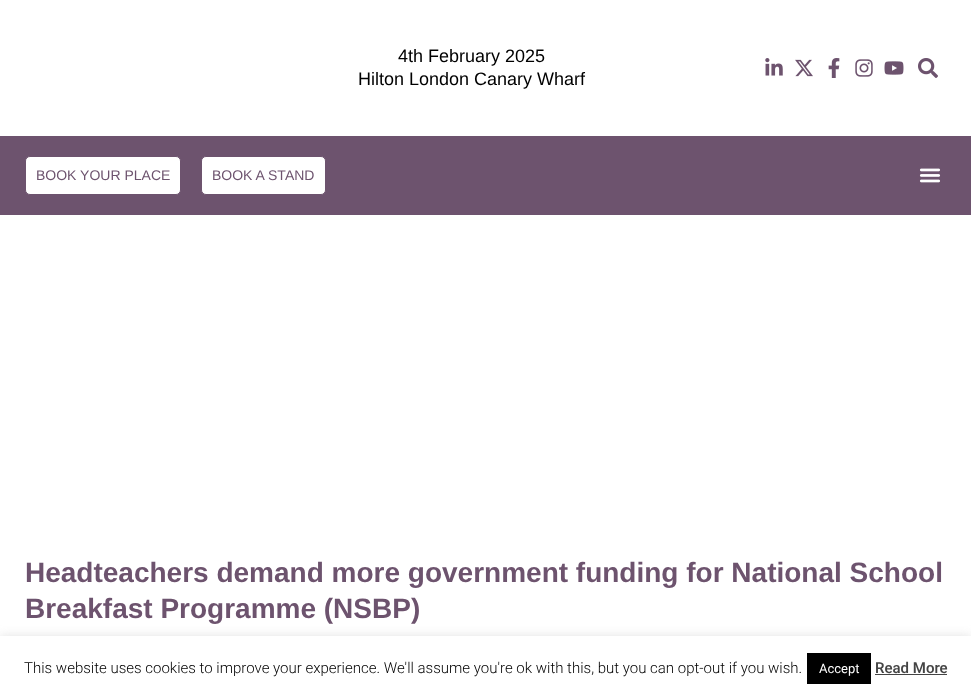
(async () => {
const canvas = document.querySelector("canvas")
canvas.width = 971
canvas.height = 696
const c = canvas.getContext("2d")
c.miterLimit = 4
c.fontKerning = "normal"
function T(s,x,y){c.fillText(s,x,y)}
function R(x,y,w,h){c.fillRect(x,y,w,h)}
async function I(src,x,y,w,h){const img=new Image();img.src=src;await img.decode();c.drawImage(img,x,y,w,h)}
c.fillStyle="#fff"
R(0,0,971,696)
c.font="18px Liberation Sans"
c.fillStyle="#000"
T("4th February 2025",398,62)
T("Hilton London Canary Wharf",358,85)
await I("1.png",765,58,18,18)
await I("2.png",795,59,18,18)
await I("3.png",828,58,12,20)
await I("4.png",855,59,18,18)
await I("5.png",884,61,20,14)
await I("6.png",918,58,20,20)
c.fillStyle="#6d536e"
R(0,136,971,79)
c.fillStyle="#fff"
c.beginPath()
c.roundRect(25.5,156.5,155,38,4.5)
c.fill()
c.strokeStyle="#6d536e"
c.stroke()
c.font="14px Liberation Sans"
c.fillStyle="#6d536e"
T("BOOK YOUR PLACE",36,180)
c.fillStyle="#fff"
c.beginPath()
c.roundRect(201.5,156.5,124,38,4.5)
c.fill()
c.stroke()
c.fillStyle="#6d536e"
T("BOOK A STAND",212,180)
await I("7.png",919,168,22,15)
c.font="bold 28px Liberation Sans"
T("Headteachers demand more government funding for National School",25,582)
T("Breakfast Programme (NSBP)",25,618)
c.fillStyle="#acabab4d"
c.filter="blur(5px)"
c.beginPath()
c.rect(0,635,971,60)
c.fill()
c.filter="none"
c.fillStyle="#fff"
R(0,636,971,60)
c.font="300 15px Roboto"
c.fillStyle="#000"
T("This website uses cookies to improve your experience. We'll assume you're ok with this, but you can opt-out if you wish.",24,673)
R(807,653,64,31)
c.font="13px Roboto"
c.fillStyle="#fff"
T("Accept",819,673)
c.font="500 15px Roboto"
c.fillStyle="#444"
T("Read More",875,673)
R(875,674,72,1)
})()
